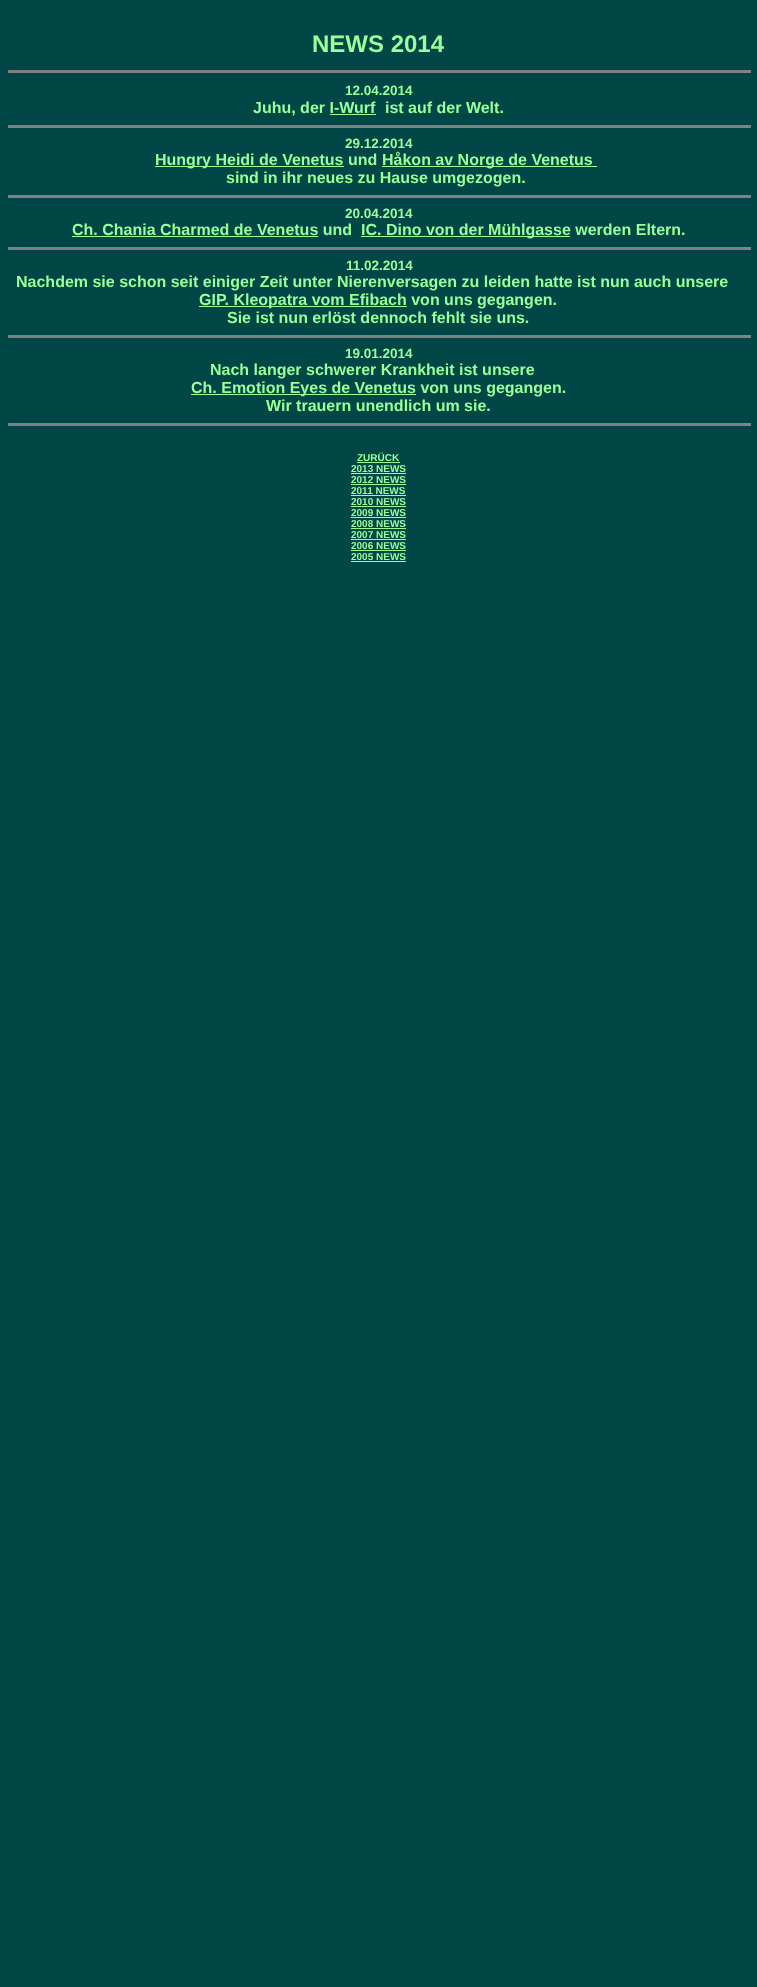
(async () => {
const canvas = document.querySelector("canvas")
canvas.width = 757
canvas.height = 1987
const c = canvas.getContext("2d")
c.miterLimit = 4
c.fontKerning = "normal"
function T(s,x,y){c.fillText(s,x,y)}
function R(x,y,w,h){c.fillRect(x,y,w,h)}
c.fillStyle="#004646"
R(0,0,757,1987)
c.font="bold 24px Liberation Sans"
c.fillStyle="#9f9"
T("NEWS 2014",312,52)
c.fillStyle="#808080"
R(8,70,743,3)
c.font="bold 13.5px Liberation Sans"
c.fillStyle="#9f9"
T("12.04.2014",345,95)
c.font="bold 16px Liberation Sans"
T("Juhu, der I-Wurf",253,113)
R(330,114,46,1)
T("ist auf der Welt.",385,113)
c.fillStyle="#808080"
R(8,125,743,3)
c.font="bold 13.5px Liberation Sans"
c.fillStyle="#9f9"
T("29.12.2014",345,148)
R(155,166,189,1)
c.font="bold 16px Liberation Sans"
T("Hungry Heidi de Venetus und",155,165)
R(382,166,215,1)
T("Håkon av Norge de Venetus",382,165)
T("sind in ihr neues zu Hause umgezogen.",226,183)
c.fillStyle="#808080"
R(8,195,743,3)
c.font="bold 13.5px Liberation Sans"
c.fillStyle="#9f9"
T("20.04.2014",345,218)
c.font="bold 16px Liberation Sans"
T("Ch. Chania Charmed de Venetus und",72,235)
R(72,236,246,1)
R(361,236,209,1)
T("IC. Dino von der Mühlgasse werden Eltern.",361,235)
c.fillStyle="#808080"
R(8,247,743,3)
c.font="bold 13.5px Liberation Sans"
c.fillStyle="#9f9"
T("11.02.2014",346,270)
c.font="bold 16px Liberation Sans"
T("Nachdem sie schon seit einiger Zeit unter Nierenversagen zu leiden hatte ist nun auch unsere",16,287)
R(199,306,208,1)
T("GIP. Kleopatra vom Efibach von uns gegangen.",199,305)
T("Sie ist nun erlöst dennoch fehlt sie uns.",227,323)
c.fillStyle="#808080"
R(8,335,743,3)
c.font="bold 13.5px Liberation Sans"
c.fillStyle="#9f9"
T("19.01.2014",345,358)
c.font="bold 16px Liberation Sans"
T("Nach langer schwerer Krankheit ist unsere",210,375)
R(191,394,225,1)
T("Ch. Emotion Eyes de Venetus von uns gegangen.",191,393)
T("Wir trauern unendlich um sie.",266,411)
c.fillStyle="#808080"
R(8,423,743,3)
c.font="bold 10px Liberation Sans"
c.fillStyle="#9f9"
T("ZURÜCK",357,461)
R(357,462,43,1)
T("2013 NEWS",351,472)
R(351,473,55,1)
T("2012 NEWS",351,483)
R(351,484,55,1)
T("2011 NEWS",351,494)
R(351,495,55,1)
T("2010 NEWS",351,505)
R(351,506,55,1)
T("2009 NEWS",351,516)
R(351,517,55,1)
T("2008 NEWS",351,527)
R(351,528,55,1)
T("2007 NEWS",351,538)
R(351,539,55,1)
T("2006 NEWS",351,549)
R(351,550,55,1)
T("2005 NEWS",351,560)
R(351,561,55,1)
})()
